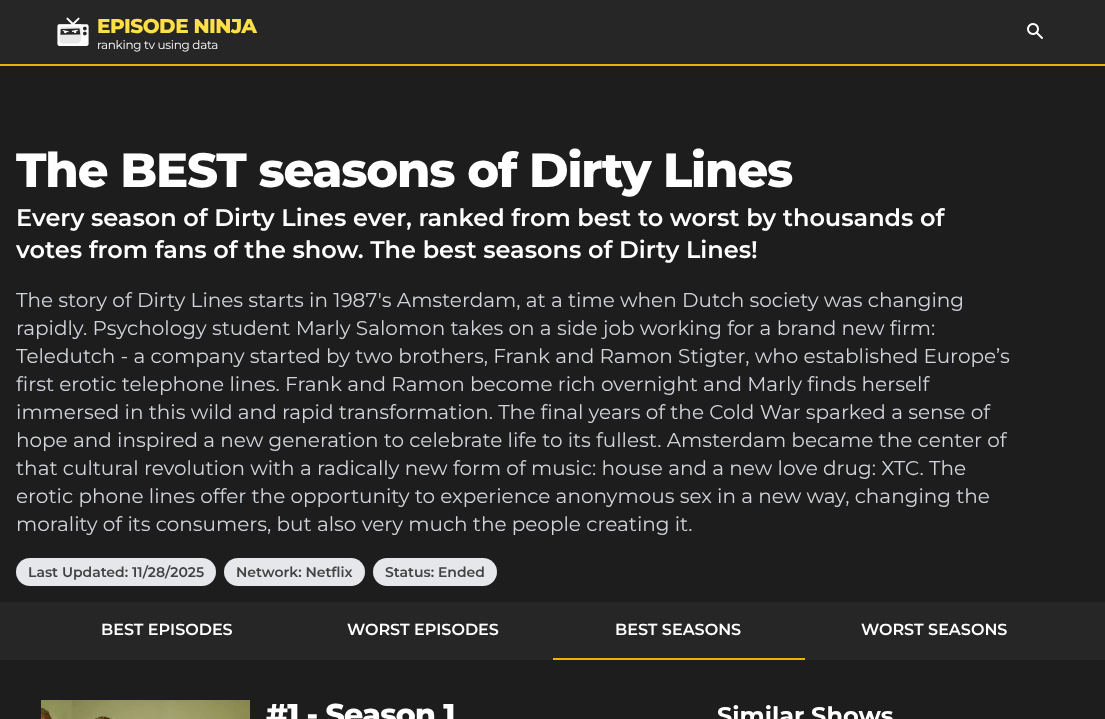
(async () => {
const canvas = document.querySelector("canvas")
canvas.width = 1105
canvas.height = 719
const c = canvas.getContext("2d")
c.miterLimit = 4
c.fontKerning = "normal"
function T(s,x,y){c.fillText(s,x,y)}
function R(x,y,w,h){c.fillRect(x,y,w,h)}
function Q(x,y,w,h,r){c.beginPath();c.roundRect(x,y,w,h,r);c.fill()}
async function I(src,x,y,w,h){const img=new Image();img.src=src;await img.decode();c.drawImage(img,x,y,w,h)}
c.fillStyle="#262626"
R(0,0,1105,719)
c.fillStyle="#eab308"
R(0,64,1105,2)
await I("1.png",57,17,32,29)
c.letterSpacing="-0.5px"
c.font="800 20px Montserrat"
c.fillStyle="#fde047"
T("EPISODE NINJA",97,33)
c.letterSpacing="-0.3px"
c.font="12px Montserrat"
c.fillStyle="#fff"
T("ranking tv using data",97,49)
await I("2.png",1027,23,16,16)
c.fillStyle="#1d1d1d"
R(0,66,1105,536)
c.letterSpacing="-1.2px"
c.font="800 48px Montserrat"
c.fillStyle="#fff"
T("The BEST seasons of Dirty Lines",16,187)
c.letterSpacing="0px"
c.font="600 24px Montserrat"
T("Every season of Dirty Lines ever, ranked from best to worst by thousands of",16,226)
T("votes from fans of the show. The best seasons of Dirty Lines!",16,258)
c.font="20px Montserrat"
c.fillStyle="#d1d5db"
T("The story of Dirty Lines starts in 1987's Amsterdam, at a time when Dutch society was changing",16,307)
T("rapidly. Psychology student Marly Salomon takes on a side job working for a brand new firm:",16,335)
T("Teledutch - a company started by two brothers, Frank and Ramon Stigter, who established Europe’s",16,363)
T("first erotic telephone lines. Frank and Ramon become rich overnight and Marly finds herself",16,391)
T("immersed in this wild and rapid transformation. The final years of the Cold War sparked a sense of",16,419)
T("hope and inspired a new generation to celebrate life to its fullest. Amsterdam became the center of",16,447)
T("that cultural revolution with a radically new form of music: house and a new love drug: XTC. The",16,475)
T("erotic phone lines offer the opportunity to experience anonymous sex in a new way, changing the",16,503)
T("morality of its consumers, but also very much the people creating it.",16,531)
c.fillStyle="#e5e7eb"
Q(16,558,200,28,14)
c.font="600 14px Montserrat"
c.fillStyle="#424242"
T("Last Updated: 11/28/2025",28,577)
c.fillStyle="#e5e7eb"
Q(224,558,141,28,14)
c.fillStyle="#424242"
T("Network: Netflix",236,577)
c.fillStyle="#e5e7eb"
Q(373,558,124,28,14)
c.fillStyle="#424242"
T("Status: Ended",385,577)
c.font="600 16px Montserrat"
c.fillStyle="#fff"
T("BEST EPISODES",101,635)
T("WORST EPISODES",347,635)
c.fillStyle="#eab308"
R(553,658,252,2)
c.fillStyle="#fff"
T("BEST SEASONS",615,635)
T("WORST SEASONS",861,635)
c.fillStyle="#1d1d1d"
R(0,660,1105,59)
await I("3.png",41,700,209,19)
c.letterSpacing="-0.75px"
c.font="800 30px Montserrat"
c.fillStyle="#fff"
T("#1 - Season 1",266,725)
c.letterSpacing="0px"
c.font="bold 24px Montserrat"
T("Similar Shows",717,724)
})()
